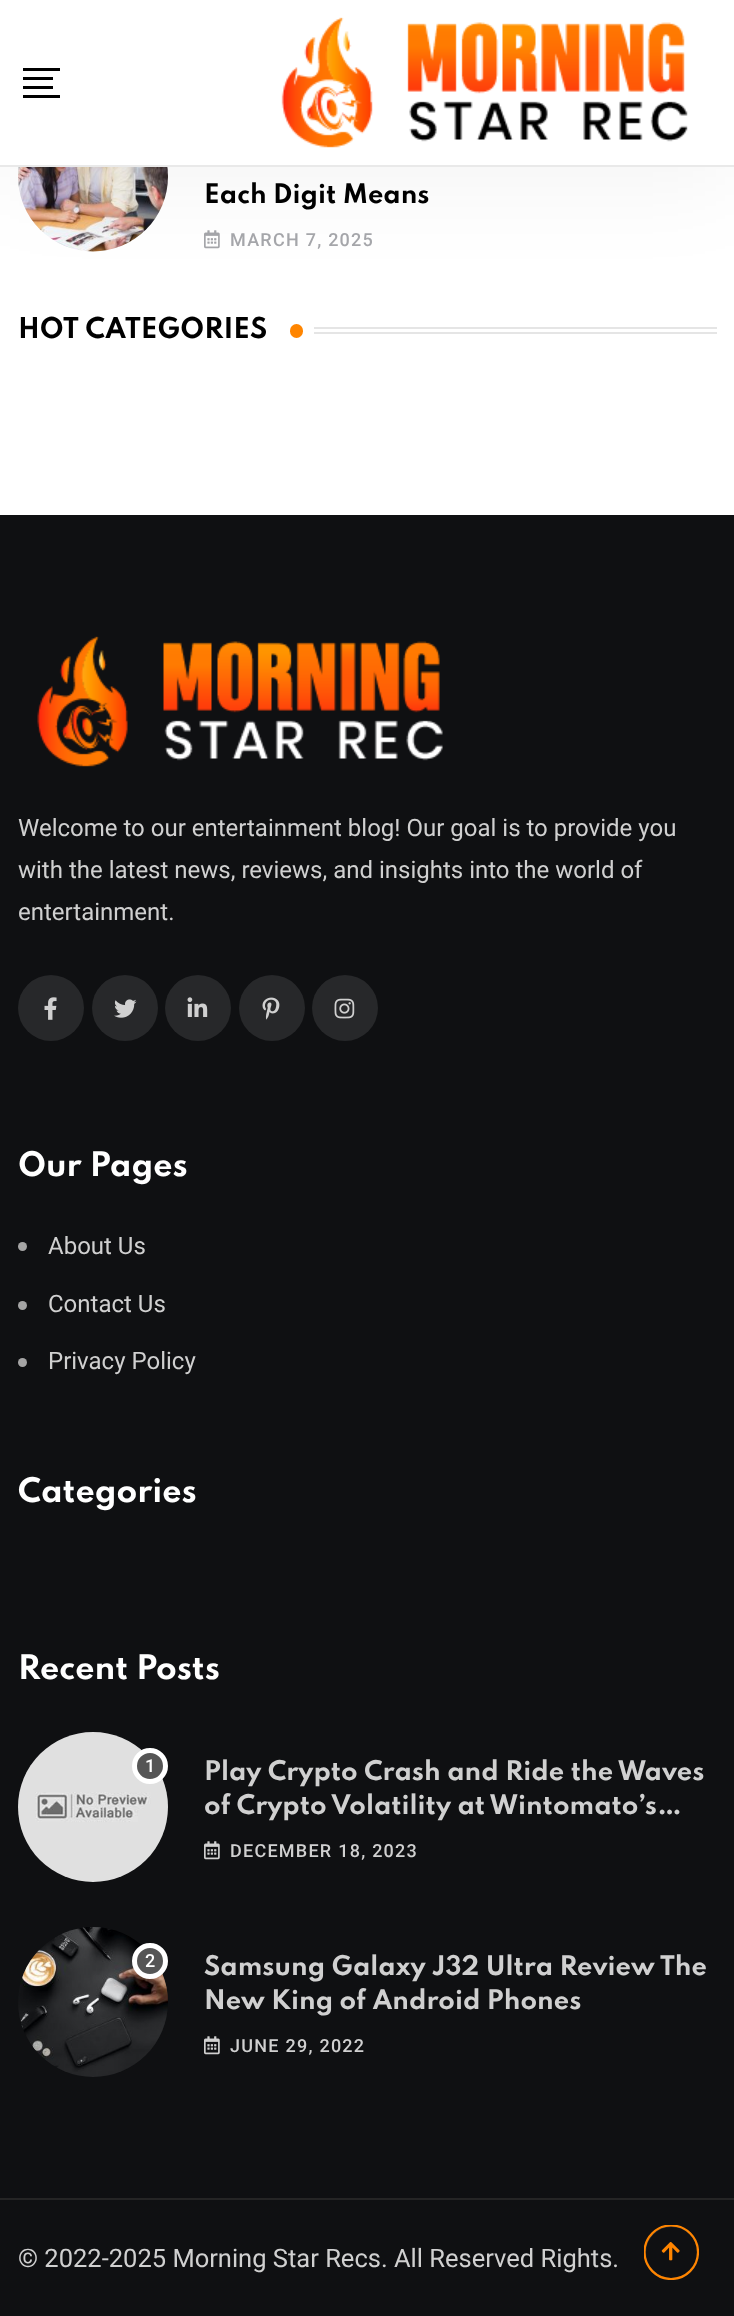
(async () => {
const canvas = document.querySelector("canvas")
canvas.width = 734
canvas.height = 2316
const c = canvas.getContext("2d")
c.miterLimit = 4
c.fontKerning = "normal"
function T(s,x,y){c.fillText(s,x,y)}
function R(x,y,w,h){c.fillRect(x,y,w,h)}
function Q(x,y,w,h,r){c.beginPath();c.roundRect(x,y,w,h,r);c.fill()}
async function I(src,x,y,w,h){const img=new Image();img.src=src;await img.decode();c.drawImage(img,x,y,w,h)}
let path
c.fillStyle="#fff"
R(0,0,734,2316)
await I("2.png",18,167,150,85)
await I("3.png",204,230,16,19)
c.fillStyle="#ff8500"
Q(290,324,13,14,6.5)
c.fillStyle="#0000000d"
c.filter="blur(49px)"
c.beginPath()
c.rect(0,11,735,166)
c.fill()
c.filter="none"
c.fillStyle="#fff"
R(0,0,734,165)
c.fillStyle="#e9e9e9"
R(0,165,734,2)
c.fillStyle="#000"
R(23,68,37,3)
R(23,77,30,3)
R(23,86,30,3)
R(23,95,37,3)
await I("1.png",281,17,407,131)
c.font="bold 24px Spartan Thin"
T("Each Digit Means",204,203)
c.letterSpacing="1.25px"
c.font="500 18px Roboto"
c.fillStyle="#a5a6aa"
T("MARCH 7, 2025",230,246)
c.letterSpacing="0px"
c.font="bold 25.5px Spartan Thin"
c.fillStyle="#000"
T("HOT CATEGORIES",18,338)
c.fillStyle="#e5e5e5"
R(314,327,403,2)
R(314,332,403,2)
c.fillStyle="#0f1012"
R(0,515,734,1801)
await I("4.png",37,636,406,131)
c.font="24px Roboto"
c.fillStyle="#d0d0d0"
T("Welcome to our entertainment blog! Our goal is to provide you",18,836)
T("with the latest news, reviews, and insights into the world of",18,878)
T("entertainment.",18,920)
c.fillStyle="#27282a"
c.beginPath()
c.arc(51,1008,33,0,7)
c.fill()
await I("5.png",44,997,13,23)
c.beginPath()
c.arc(125,1008,33,0,7)
c.fill()
await I("6.png",114,999,23,19)
c.beginPath()
c.arc(198,1008,33,0,7)
c.fill()
await I("7.png",187,997,21,20)
c.beginPath()
c.arc(272,1008,33,0,7)
c.fill()
await I("8.png",262,997,18,23)
c.beginPath()
c.arc(345,1008,33,0,7)
c.fill()
await I("9.png",334,998,21,21)
c.font="bold 30px Spartan Thin"
c.fillStyle="#fff"
T("Our Pages",18,1176)
c.fillStyle="#a5a5a5"
c.beginPath()
c.arc(22.5,1246.5,4.5,0,7)
c.fill()
c.font="24px Roboto"
c.fillStyle="#d0d0d0"
T("About Us",48,1254)
c.fillStyle="#a5a5a5"
c.beginPath()
c.arc(22.5,1305.5,4.5,0,7)
c.fill()
c.fillStyle="#d0d0d0"
T("Contact Us",48,1312)
c.fillStyle="#a5a5a5"
c.beginPath()
c.arc(22.5,1362.5,4.5,0,7)
c.fill()
c.fillStyle="#d0d0d0"
T("Privacy Policy",48,1369)
c.font="bold 30px Spartan Thin"
c.fillStyle="#fff"
T("Categories",18,1502)
T("Recent Posts",18,1679)
await I("10.png",18,1732,150,150)
c.fillStyle="#555"
c.beginPath()
c.arc(150,1766,15.5,0,7)
c.fill()
c.strokeStyle="#fff"
c.lineWidth=5
c.stroke()
c.font="500 18px Roboto"
c.fillStyle="#fff"
T("1",145,1772)
c.font="bold 24px Spartan Thin"
c.fillStyle="#d0d0d0"
T("Play Crypto Crash and Ride the Waves",204,1780)
T("of Crypto Volatility at Wintomato’s…",204,1814)
await I("11.png",204,1841,16,19)
c.letterSpacing="1.25px"
c.font="500 18px Roboto"
T("DECEMBER 18, 2023",230,1857)
await I("12.png",18,1927,150,150)
c.fillStyle="#555"
c.beginPath()
c.arc(150,1961,15.5,0,7)
c.fill()
c.stroke()
c.letterSpacing="0px"
c.fillStyle="#fff"
T("2",145,1967)
c.font="bold 24px Spartan Thin"
c.fillStyle="#d0d0d0"
T("Samsung Galaxy J32 Ultra Review The",204,1975)
T("New King of Android Phones",204,2009)
await I("11.png",204,2036,16,19)
c.letterSpacing="1.25px"
c.font="500 18px Roboto"
T("JUNE 29, 2022",230,2052)
c.fillStyle="#252525"
R(0,2198,734,2)
c.letterSpacing="0px"
c.font="25.5px Roboto"
c.fillStyle="#d0d0d0"
T("© 2022-2025 Morning Star Recs. All Reserved Rights.",18,2267)
c.beginPath()
c.arc(671.5,2252.5,26.5,0,7)
c.strokeStyle="#2b2d2f"
c.lineWidth=2
c.stroke()
c.save()
c.beginPath()
c.rect(644,2225,55,55)
c.clip()
path = new Path2D("M671 2225.5c15 0 27 12 27 26.5c0 15-12 27-27 27c-14.5 0-26.5-12-26.5-27c0-14.5 12-26.5 26.5-26.5")
c.strokeStyle="#ff8500"
c.lineWidth=2.2
c.stroke(path)
c.restore()
await I("13.png",661,2242,19,19)
})()
